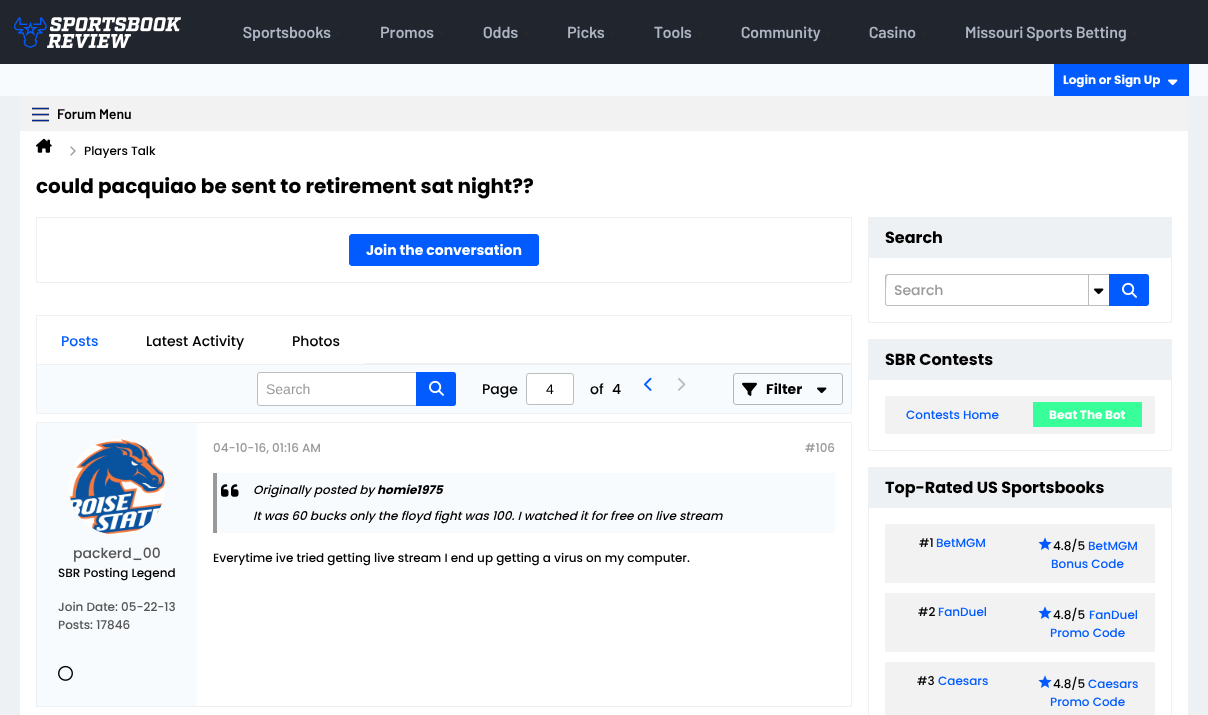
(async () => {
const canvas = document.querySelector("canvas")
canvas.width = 1208
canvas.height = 715
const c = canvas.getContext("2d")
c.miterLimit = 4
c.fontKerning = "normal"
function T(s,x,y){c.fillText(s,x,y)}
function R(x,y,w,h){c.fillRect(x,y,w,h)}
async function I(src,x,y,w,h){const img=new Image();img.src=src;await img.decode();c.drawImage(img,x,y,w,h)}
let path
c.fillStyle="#eef1f4"
R(0,0,1208,715)
c.fillStyle="#21252d"
R(0,0,1208,64)
await I("1.png",14,17,167,31)
c.font="600 16px Barlow"
c.fillStyle="#adb5c3"
T("Sportsbooks",243,38)
await I("2.png",335,31,7,4)
T("Promos",380,38)
await I("2.png",438,31,7,4)
T("Odds",483,38)
await I("2.png",522,31,7,4)
T("Picks",567,38)
await I("2.png",609,31,7,4)
T("Tools",654,38)
await I("2.png",696,31,7,4)
T("Community",741,38)
await I("2.png",824,31,7,4)
T("Casino",869,38)
await I("2.png",920,31,7,4)
T("Missouri Sports Betting",965,38)
await I("2.png",1131,31,7,4)
c.fillStyle="#f2f2f2"
c.beginPath()
c.roundRect(20,96,1168,35,[3,3,0,0])
c.fill()
await I("3.png",32,107,17,15)
c.font="600 14px Barlow"
c.fillStyle="#000"
T("Forum Menu",57,119)
c.fillStyle="#fff"
R(20,131,1168,584)
await I("4.png",36,138,16,15)
await I("5.png",70,146,6,10)
c.font="500 12px Poppins"
c.fillStyle="#000"
T("Players Talk",84,155)
c.font="bold 20px Poppins"
T("could pacquiao be sent to retirement sat night??",36,193)
c.strokeStyle="#eef1f4"
c.strokeRect(36.5,217.5,815,65)
c.fillStyle="#025bff"
c.beginPath()
c.roundRect(349.5,234.5,189,31,2.5)
c.fill()
c.strokeStyle="#025bff"
c.stroke()
c.font="bold 14px Poppins"
c.fillStyle="#fff"
T("Join the conversation",366,255)
c.fillStyle="#eef1f4"
R(36,315,816,1)
R(851,315,1,50)
R(364,363,488,1)
R(36,315,1,50)
c.font="500 14px Poppins"
c.fillStyle="#025bff"
T("Posts",61,346)
c.fillStyle="#000"
T("Latest Activity",146,346)
T("Photos",292,346)
c.fillStyle="#f8fbfd"
c.beginPath()
c.rect(36.5,364.5,815,49)
c.fill()
c.strokeStyle="#eef1f4"
c.stroke()
c.fillStyle="#fff"
c.beginPath()
c.roundRect(257.5,372.5,198,33,2.5)
c.fill()
c.strokeStyle="#bbbebf"
c.stroke()
c.font="14px Liberation Sans"
c.fillStyle="#999"
T("Search",266,394)
c.fillStyle="#025bff"
c.beginPath()
c.roundRect(416,372,40,34,[0,3,3,0])
c.fill()
await I("6.png",429,380,15,16)
c.font="500 14px Poppins"
c.fillStyle="#000"
T("Page",482,394)
c.fillStyle="#fff"
c.beginPath()
c.roundRect(526.5,373.5,47,31,2.5)
c.fill()
c.stroke()
c.font="14px Liberation Sans"
c.fillStyle="#000"
T("4",546,394)
c.font="500 14px Poppins"
T("of",590,394)
T("4",612,394)
await I("7.png",644,377,8,14)
await I("8.png",678,377,8,14)
c.beginPath()
c.roundRect(733.5,373.5,109,31,2.5)
c.strokeStyle="#b7b7b7"
c.stroke()
await I("9.png",742,382,15,14)
c.font="bold 14px Poppins"
T("Filter",766,394)
await I("10.png",817,387,10,7)
c.fillStyle="#f8fbfd"
R(37,423,160,283)
c.strokeStyle="#eef1f4"
c.strokeRect(36.5,422.5,815,284)
c.font="500 12px Poppins"
c.fillStyle="#999"
T("04-10-16, 01:16 AM",213,452)
T("#106",805,452)
c.fillStyle="#f8fbfd"
R(217,473,618,60)
c.fillStyle="#999"
R(213,473,4,60)
await I("11.png",221,484,18,13)
c.font="italic 500 12px Poppins"
c.fillStyle="#000"
T("Originally posted by",253,494)
c.font="italic bold 12px Poppins"
T("homie1975",377,494)
c.font="italic 500 12px Poppins"
T("It was 60 bucks only the floyd fight was 100. I watched it for free on live stream",253,520)
c.font="500 12px Poppins"
T("Everytime ive tried getting live stream I end up getting a virus on my computer.",213,562)
await I("12.png",69,439,96,96)
c.font="500 14px Poppins"
c.fillStyle="#555"
T("packerd_00",73,558)
c.font="500 12px Poppins"
c.fillStyle="#000"
T("SBR Posting Legend",58,577)
c.fillStyle="#555"
T("Join Date: 05-22-13",58,611)
T("Posts: 17846",58,629)
await I("13.png",58,665,15,16)
c.strokeRect(868.5,217.5,303,105)
c.fillStyle="#eef1f4"
R(869,218,302,40)
c.font="bold 16px Poppins"
c.fillStyle="#000"
T("Search",885,243)
c.fillStyle="#bbbebf"
path = new Path2D("M888 274h221v32h-221c-2 0-3-1-3-3v-26c0-2 1-3 3-3zm0 1h221v30h-222l-1-2c0-2 0-27 1-27z")
c.fill(path,"evenodd")
c.font="500 14px Poppins"
c.fillStyle="#999"
T("Search",894,295)
c.fillStyle="#bdbdbd"
R(1088,274,1,32)
await I("14.png",1094,288,10,7)
c.fillStyle="#025bff"
c.beginPath()
c.roundRect(1109,274,40,32,[0,3,3,0])
c.fill()
await I("6.png",1122,282,15,16)
c.strokeRect(868.5,339.5,303,111)
c.fillStyle="#eef1f4"
R(869,340,302,40)
c.font="bold 16px Poppins"
c.fillStyle="#000"
T("SBR Contests",885,365)
c.fillStyle="#f2f2f2"
R(885,396,270,38)
c.font="500 12px Poppins"
c.fillStyle="#025bff"
T("Contests Home",906,419)
c.fillStyle="#38ff9a"
R(1033,402,109,25)
c.font="bold 12px Poppins"
c.fillStyle="#fff"
T("Beat The Bot",1049,419)
c.strokeRect(868.5,467.5,303,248)
c.fillStyle="#eef1f4"
R(869,468,302,40)
c.font="bold 16px Poppins"
c.fillStyle="#000"
T("Top-Rated US Sportsbooks",885,493)
c.fillStyle="#f2f2f2"
R(885,524,270,59)
c.font="500 12px Poppins"
c.fillStyle="#000"
T("#1",919,547)
c.fillStyle="#025bff"
T("BetMGM",936,547)
await I("15.png",1038,537,14,13)
c.fillStyle="#000"
T("4.8/5",1053,550)
c.fillStyle="#025bff"
T("BetMGM",1088,550)
T("Bonus Code",1051,568)
c.fillStyle="#f2f2f2"
R(885,593,270,59)
c.fillStyle="#000"
T("#2",918,616)
c.fillStyle="#025bff"
T("FanDuel",938,616)
await I("15.png",1038,606,14,13)
c.fillStyle="#000"
T("4.8/5",1053,619)
c.fillStyle="#025bff"
T("FanDuel",1089,619)
T("Promo Code",1050,637)
c.fillStyle="#f2f2f2"
R(885,662,270,53)
c.fillStyle="#000"
T("#3",917,685)
c.fillStyle="#025bff"
T("Caesars",938,685)
await I("15.png",1038,675,14,13)
c.fillStyle="#000"
T("4.8/5",1053,688)
c.fillStyle="#025bff"
T("Caesars",1088,688)
T("Promo Code",1050,706)
c.fillStyle="#f8fbfd"
R(0,64,1208,32)
c.fillStyle="#025bff"
R(1054,64,135,32)
c.font="bold 12px Poppins"
c.fillStyle="#fff"
T("Login or Sign Up",1063,84)
await I("16.png",1168,79,10,7)
})()
